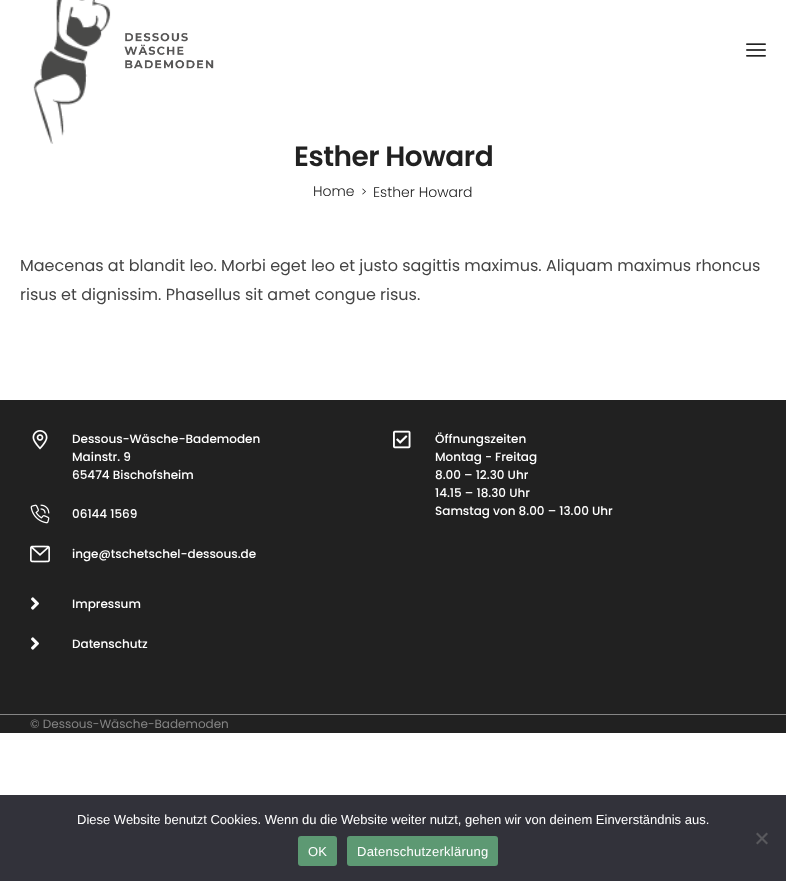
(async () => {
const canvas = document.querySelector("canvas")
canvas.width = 786
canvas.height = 881
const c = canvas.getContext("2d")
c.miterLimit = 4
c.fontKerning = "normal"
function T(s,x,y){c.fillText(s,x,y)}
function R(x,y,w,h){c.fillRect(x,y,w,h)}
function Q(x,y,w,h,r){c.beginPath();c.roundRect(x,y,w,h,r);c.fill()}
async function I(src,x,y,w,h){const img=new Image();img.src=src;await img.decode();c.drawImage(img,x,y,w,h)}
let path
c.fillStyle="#fff"
R(0,0,786,881)
await I("1.png",33,0,78,144)
await I("2.png",124,33,90,36)
await I("3.png",746,43,20,14)
c.letterSpacing="-0.5px"
c.font="600 28px Poppins"
c.fillStyle="#212121"
T("Esther Howard",294,166)
c.letterSpacing="0px"
c.font="300 14px Poppins"
T("Home",313,196)
c.font="300 12px Poppins"
T(">",361,196)
c.font="300 14px Poppins"
T("Esther Howard",373,197)
c.font="16px Poppins"
c.fillStyle="#444"
T("Maecenas at blandit leo. Morbi eget leo et justo sagittis maximus. Aliquam maximus rhoncus",20,271)
T("risus et dignissim. Phasellus sit amet congue risus.",20,300)
c.fillStyle="#212121"
R(0,400,786,314)
await I("4.png",32,430,16,20)
c.font="500 12px Poppins"
c.fillStyle="#fff"
T("Dessous-Wäsche-Bademoden",72,443)
T("Mainstr. 9",72,461)
T("65474 Bischofsheim",72,479)
await I("5.png",30,504,20,20)
T("06144 1569",72,518)
await I("6.png",30,545,20,18)
T("inge@tschetschel-dessous.de",72,558)
await I("7.png",393,430,18,19)
T("Öffnungszeiten",435,443)
T("Montag - Freitag",435,461)
T("8.00 – 12.30 Uhr",435,479)
T("14.15 – 18.30 Uhr",435,497)
T("Samstag von 8.00 – 13.00 Uhr",435,515)
await I("8.png",31,597,8,13)
T("Impressum",72,608)
await I("8.png",31,637,8,13)
T("Datenschutz",72,648)
c.fillStyle="#212121"
R(0,715,786,18)
c.fillStyle="#858585"
R(0,714,786,1)
c.font="12px Poppins"
T("© Dessous-Wäsche-Bademoden",30,728)
c.fillStyle="#32323a"
R(0,795,786,86)
c.font="13px Liberation Sans"
c.fillStyle="#fff"
T("Diese Website benutzt Cookies. Wenn du die Website weiter nutzt, gehen wir von deinem Einverständnis aus.",77,824)
c.fillStyle="#59595d"
path = new Path2D("M766.5 832.5l1.5 1.5l-10.5 10.5l-1.5-1.5z")
c.fill(path)
path = new Path2D("M756 834l1.5-1.5l10.5 10.5l-1.5 1.5z")
c.fill(path)
c.fillStyle="#5d9973"
Q(298,836,39,30,3)
c.letterSpacing="0.25px"
c.fillStyle="#fff"
T("OK",308,856)
c.fillStyle="#5d9973"
Q(347,836,151,30,3)
c.fillStyle="#fff"
T("Datenschutzerklärung",357,856)
})()
